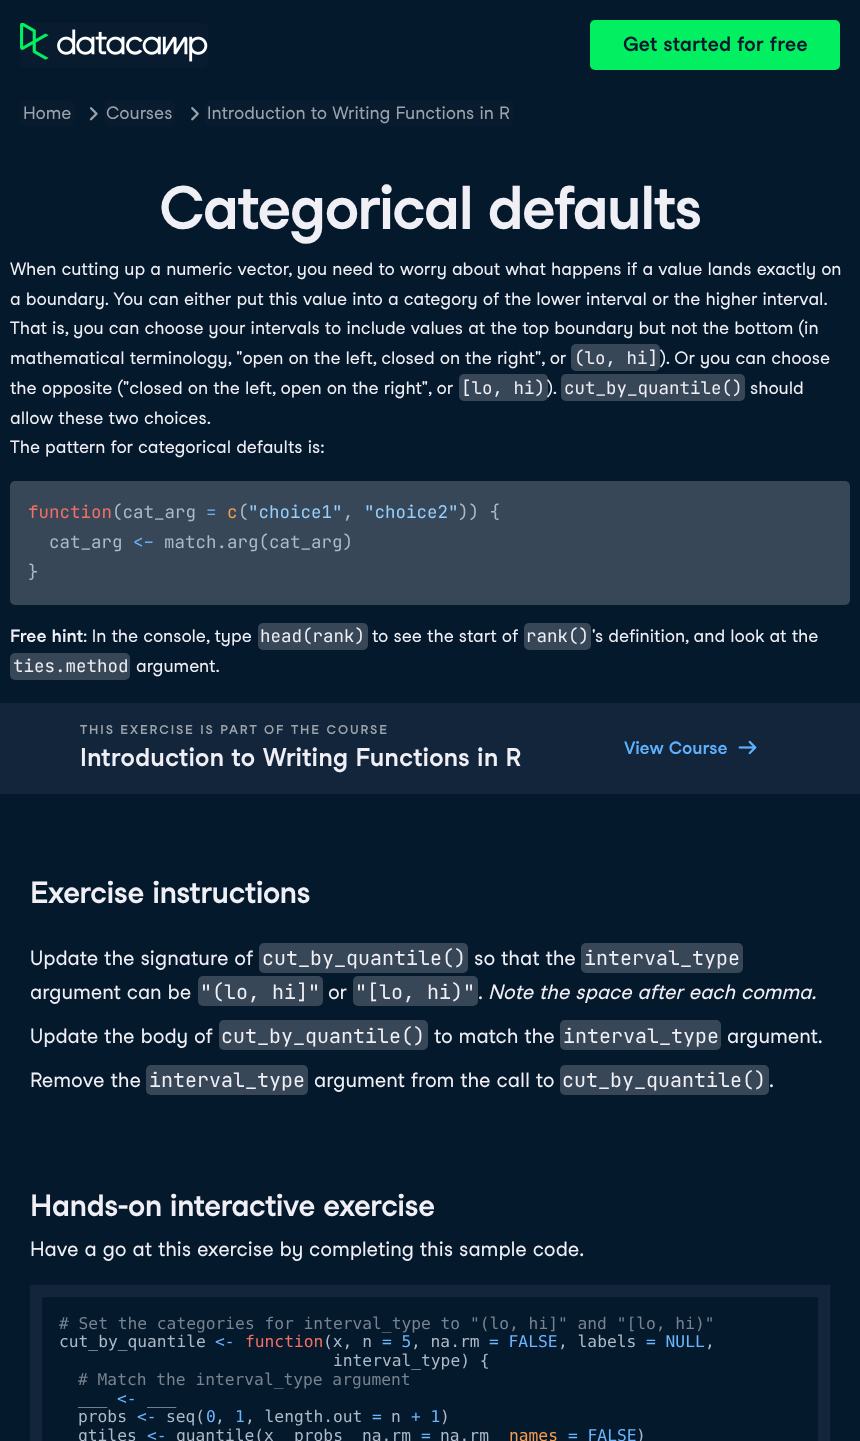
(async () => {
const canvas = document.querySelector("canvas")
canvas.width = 860
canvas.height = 1441
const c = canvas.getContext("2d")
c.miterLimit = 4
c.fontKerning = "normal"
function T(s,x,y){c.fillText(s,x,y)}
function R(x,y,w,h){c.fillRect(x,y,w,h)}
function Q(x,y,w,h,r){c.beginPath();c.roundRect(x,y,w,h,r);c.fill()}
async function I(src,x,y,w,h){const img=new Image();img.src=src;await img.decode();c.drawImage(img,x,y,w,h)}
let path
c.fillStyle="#05192d"
R(0,0,860,1441)
c.fillStyle="#081b2f"
Q(20,23,188,45,5)
await I("1.png",20,23,188,39)
c.fillStyle="#03ef62"
Q(590,20,250,50,5)
c.font="600 20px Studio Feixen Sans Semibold"
c.fillStyle="#05192d"
T("Get started for free",623,51)
c.fillStyle="#081b2f"
Q(20,100,54,26,5)
c.font="17.5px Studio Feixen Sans"
c.fillStyle="#9ba3ab"
T("Home",23,119)
await I("2.png",89,107,9,14)
c.fillStyle="#081b2f"
Q(104,100,71,26,5)
c.fillStyle="#9ba3ab"
T("Courses",106,119)
await I("3.png",191,107,8,14)
c.fillStyle="#081b2f"
Q(205,100,308,26,5)
c.fillStyle="#9ba3ab"
T("Introduction to Writing Functions in R",207,119)
c.letterSpacing="-2.2px"
c.font="600 60px Studio Feixen Sans Semibold"
c.fillStyle="#efeff5"
T("Categorical defaults",159,229)
c.letterSpacing="0px"
c.font="17.5px Studio Feixen Sans"
T("When cutting up a numeric vector, you need to worry about what happens if a value lands exactly on",10,275)
T("a boundary. You can either put this value into a category of the lower interval or the higher interval.",10,305)
T("That is, you can choose your intervals to include values at the top boundary but not the bottom (in",10,334)
T("mathematical terminology, \"open on the left, closed on the right\", or",10,364)
c.fillStyle="#374757"
Q(571,344,89,27,5)
c.font="17.5px JetBrains Mono"
c.fillStyle="#efeff5"
T("(lo, hi]",574,364)
c.font="17.5px Studio Feixen Sans"
T("). Or you can choose",660,364)
T("the opposite (\"closed on the left, open on the right\", or",10,394)
c.fillStyle="#374757"
Q(459,374,89,27,5)
c.font="17.5px JetBrains Mono"
c.fillStyle="#efeff5"
T("[lo, hi)",461,394)
c.font="17.5px Studio Feixen Sans"
T(").",547,394)
c.fillStyle="#374757"
Q(561,374,184,27,5)
c.font="17.5px JetBrains Mono"
c.fillStyle="#efeff5"
T("cut_by_quantile()",564,394)
c.font="17.5px Studio Feixen Sans"
T("should",750,394)
T("allow these two choices.",10,424)
T("The pattern for categorical defaults is:",10,453)
c.fillStyle="#374757"
Q(10,481,840,124,5)
c.font="17.5px JetBrains Mono"
c.fillStyle="#f47067"
T("function",28,518)
c.fillStyle="#adbac7"
T("(cat_arg",112,518)
c.fillStyle="#6cb6ff"
T("=",206,518)
c.fillStyle="#f69d50"
T("c",227,518)
c.fillStyle="#adbac7"
T("(",238,518)
c.fillStyle="#96d0ff"
T("\"choice1\"",248,518)
T("\"choice2\"",364,518)
c.fillStyle="#adbac7"
T(")) {",458,518)
T(",",343,518)
T("cat_arg",49,548)
c.fillStyle="#6cb6ff"
T("<-",133,548)
c.fillStyle="#adbac7"
T("match.arg(cat_arg)",164,548)
T("}",28,578)
c.font="600 17.5px Studio Feixen Sans Semibold"
c.fillStyle="#efeff5"
T("Free hint",10,642)
c.font="17.5px Studio Feixen Sans"
T(": In the console, type",83,642)
c.fillStyle="#374757"
Q(258,623,110,27,5)
c.font="17.5px JetBrains Mono"
c.fillStyle="#efeff5"
T("head(rank)",260,642)
c.font="17.5px Studio Feixen Sans"
T("to see the start of",372,642)
c.fillStyle="#374757"
Q(524,623,67,27,5)
c.font="17.5px JetBrains Mono"
c.fillStyle="#efeff5"
T("rank()",526,642)
c.font="17.5px Studio Feixen Sans"
T("'s definition, and look at the",592,642)
c.fillStyle="#374757"
Q(10,653,120,27,5)
c.font="17.5px JetBrains Mono"
c.fillStyle="#efeff5"
T("ties.method",13,672)
c.font="17.5px Studio Feixen Sans"
T("argument.",136,672)
c.fillStyle="#13253a"
R(0,703,860,91)
c.letterSpacing="1.9px"
c.font="600 12.5px Studio Feixen Sans Semibold"
c.fillStyle="#9ba3ab"
T("THIS EXERCISE IS PART OF THE COURSE",80,734)
c.letterSpacing="0px"
c.font="600 25px Studio Feixen Sans Semibold"
c.fillStyle="#efeff5"
T("Introduction to Writing Functions in R",80,766)
c.font="600 17.5px Studio Feixen Sans Semibold"
c.fillStyle="#5eb1ff"
T("View Course",624,754)
await I("4.png",738,740,19,15)
c.letterSpacing="-0.6px"
c.font="600 30px Studio Feixen Sans Semibold"
c.fillStyle="#efeff5"
T("Exercise instructions",30,903)
c.letterSpacing="0px"
c.font="20px Studio Feixen Sans"
T("Update the signature of",30,965)
c.fillStyle="#374757"
Q(259,943,209,30,5)
c.font="20px JetBrains Mono"
c.fillStyle="#efeff5"
T("cut_by_quantile()",262,965)
c.font="20px Studio Feixen Sans"
T("so that the",474,965)
c.fillStyle="#374757"
Q(581,943,162,30,5)
c.font="20px JetBrains Mono"
c.fillStyle="#efeff5"
T("interval_type",584,965)
c.font="20px Studio Feixen Sans"
T("argument can be",30,999)
c.fillStyle="#374757"
Q(198,976,125,30,5)
c.font="20px JetBrains Mono"
c.fillStyle="#efeff5"
T("\"(lo, hi]\"",200,999)
c.font="20px Studio Feixen Sans"
T("or",328,999)
c.fillStyle="#374757"
Q(353,976,125,30,5)
c.font="20px JetBrains Mono"
c.fillStyle="#efeff5"
T("\"[lo, hi)\"",355,999)
c.font="20px Studio Feixen Sans"
T(".",478,999)
c.font="italic 20px Studio Feixen Sans"
T("Note the space after each comma.",488,999)
c.font="20px Studio Feixen Sans"
T("Update the body of",30,1043)
c.fillStyle="#374757"
Q(219,1020,209,30,5)
c.font="20px JetBrains Mono"
c.fillStyle="#efeff5"
T("cut_by_quantile()",221,1043)
c.font="20px Studio Feixen Sans"
T("to match the",434,1043)
c.fillStyle="#374757"
Q(560,1020,161,30,5)
c.font="20px JetBrains Mono"
c.fillStyle="#efeff5"
T("interval_type",563,1043)
c.font="20px Studio Feixen Sans"
T("argument.",727,1043)
T("Remove the",30,1087)
c.fillStyle="#374757"
Q(146,1065,162,30,5)
c.font="20px JetBrains Mono"
c.fillStyle="#efeff5"
T("interval_type",149,1087)
c.font="20px Studio Feixen Sans"
T("argument from the call to",314,1087)
c.fillStyle="#374757"
Q(560,1065,209,30,5)
c.font="20px JetBrains Mono"
c.fillStyle="#efeff5"
T("cut_by_quantile()",562,1087)
c.font="20px Studio Feixen Sans"
T(".",769,1087)
c.letterSpacing="-0.6px"
c.font="600 30px Studio Feixen Sans Semibold"
T("Hands-on interactive exercise",30,1216)
c.letterSpacing="0px"
c.font="20px Studio Feixen Sans"
T("Have a go at this exercise by completing this sample code.",30,1256)
path = new Path2D("M36 1291h788v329h-788z")
c.strokeStyle="#13253a"
c.lineWidth=12.5
c.stroke(path)
c.fillStyle="#05192d"
R(817,1298,1,143)
c.font="16.25px DejaVu Sans Mono"
c.fillStyle="#768390"
T("# Set the categories for interval_type to \"(lo, hi]\" and \"[lo, hi)\"",59,1329)
c.fillStyle="#adbac7"
T("cut_by_quantile",59,1347)
c.fillStyle="#6cb6ff"
T("<-",215,1347)
c.fillStyle="#f47067"
T("function",245,1347)
c.fillStyle="#adbac7"
T("(x, n",323,1347)
c.fillStyle="#6cb6ff"
T("= 5",382,1347)
c.fillStyle="#adbac7"
T(", na.rm",411,1347)
c.fillStyle="#6cb6ff"
T("= FALSE",489,1347)
c.fillStyle="#adbac7"
T(", labels",558,1347)
c.fillStyle="#6cb6ff"
T("= NULL",646,1347)
c.fillStyle="#adbac7"
T(",",705,1347)
T("interval_type) {",333,1366)
c.fillStyle="#768390"
T("# Match the interval_type argument",78,1385)
c.fillStyle="#6cb6ff"
T("<-",117,1404)
c.fillStyle="#adbac7"
T("___",78,1404)
T("___",147,1404)
T("probs",78,1422)
T("seq( ,",166,1422)
c.fillStyle="#6cb6ff"
T("<-",137,1422)
T("0",206,1422)
T("1",235,1422)
c.fillStyle="#adbac7"
T(", length.out",245,1422)
c.fillStyle="#6cb6ff"
T("=",372,1422)
c.fillStyle="#adbac7"
T("n",391,1422)
c.fillStyle="#6cb6ff"
T("+ 1",411,1422)
c.fillStyle="#adbac7"
T(")",440,1422)
T("qtiles",78,1441)
c.fillStyle="#6cb6ff"
T("<-",147,1441)
c.fillStyle="#adbac7"
T("quantile(x",176,1441)
T("probs",294,1441)
T("na.rm",362,1441)
c.fillStyle="#6cb6ff"
T("=",421,1441)
c.fillStyle="#adbac7"
T("na.rm",440,1441)
c.fillStyle="#f69d50"
T("names",509,1441)
c.fillStyle="#6cb6ff"
T("= FALSE",568,1441)
c.fillStyle="#adbac7"
T(")",636,1441)
})()
